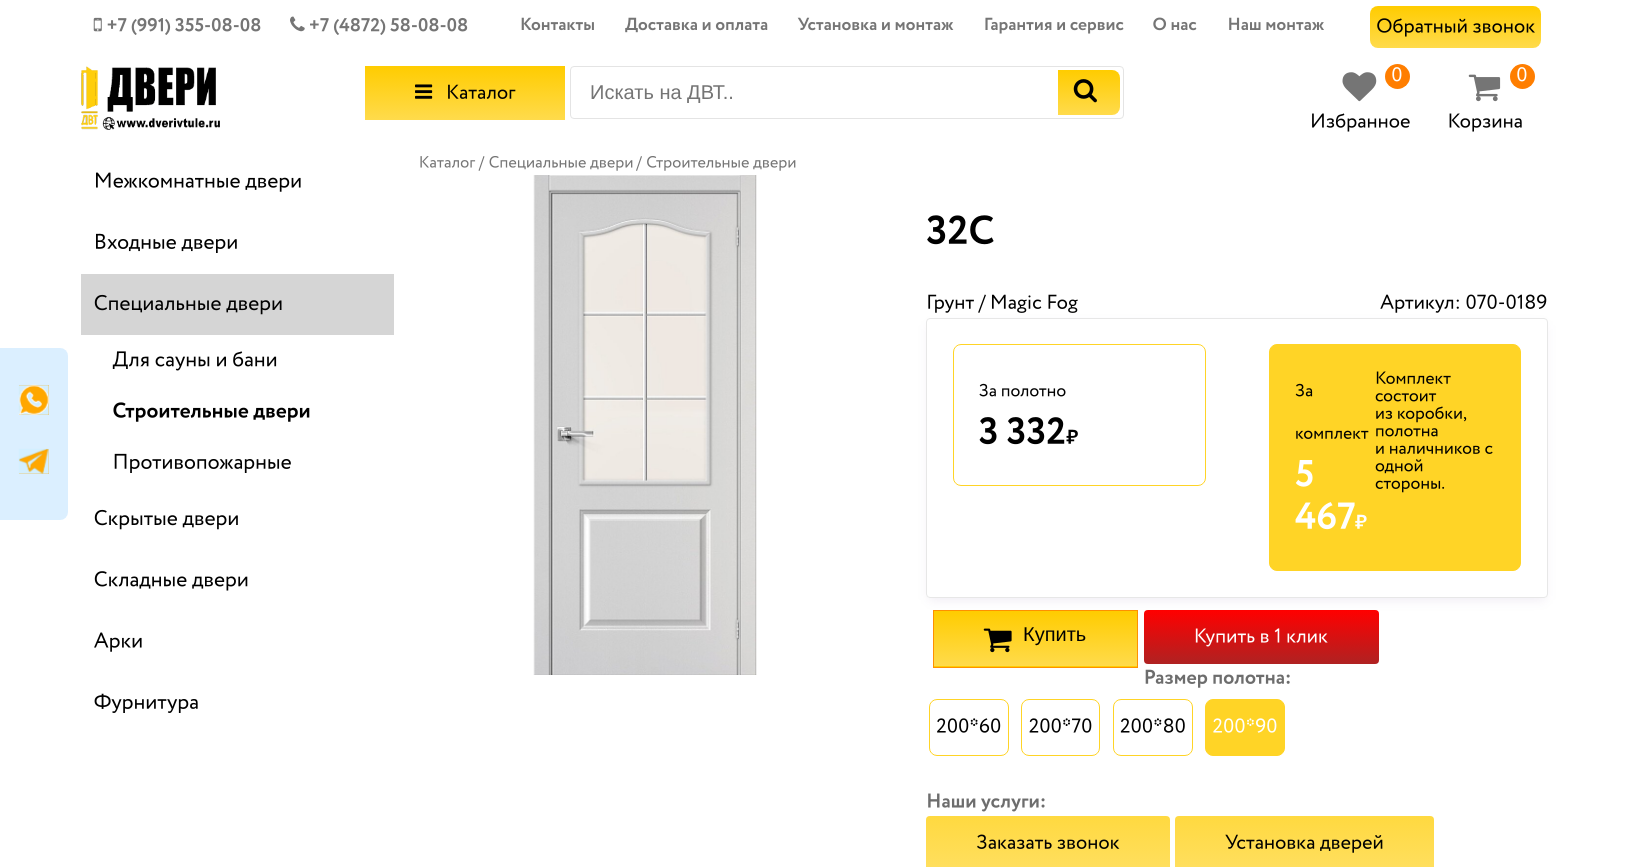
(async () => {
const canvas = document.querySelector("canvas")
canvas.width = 1628
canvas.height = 867
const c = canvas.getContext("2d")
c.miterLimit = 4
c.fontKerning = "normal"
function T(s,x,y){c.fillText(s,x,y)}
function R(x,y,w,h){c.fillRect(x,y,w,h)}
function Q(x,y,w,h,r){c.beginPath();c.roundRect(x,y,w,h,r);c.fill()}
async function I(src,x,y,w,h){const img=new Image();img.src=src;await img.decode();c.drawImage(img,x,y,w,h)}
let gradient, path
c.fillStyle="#fff"
R(0,0,1628,867)
await I("1.png",93,17,9,15)
await I("2.png",107,17,154,18)
await I("3.png",290,16,15,16)
await I("4.png",310,17,158,18)
await I("5.png",521,17,73,14)
await I("6.png",625,17,143,16)
await I("7.png",797,17,157,14)
await I("8.png",985,17,139,17)
await I("9.png",1153,17,44,14)
await I("10.png",1229,17,95,14)
gradient = c.createLinearGradient(1456,6.2,1456,48)
gradient.addColorStop(0,"#fc0")
gradient.addColorStop(1,"#ffdb4c")
c.fillStyle = gradient
Q(1370,6,171,42,8)
await I("11.png",1377,18,158,19)
await I("12.png",81,66,139,64)
gradient = c.createLinearGradient(465,66,465,120)
gradient.addColorStop(0,"#fc0")
gradient.addColorStop(1,"#ffdb4c")
c.fillStyle = gradient
R(365,66,200,54)
await I("13.png",415,84,18,15)
await I("14.png",448,84,68,15)
c.beginPath()
c.roundRect(570.5,66.5,553,52,3.5)
c.strokeStyle="#e4e4e4"
c.stroke()
c.font="20px Liberation Sans"
c.fillStyle="#757575"
T("Искать на ДВТ..",590,99)
gradient = c.createLinearGradient(1089,70,1089,115)
gradient.addColorStop(0,"#fc0")
gradient.addColorStop(1,"#ffdb4c")
c.fillStyle = gradient
c.beginPath()
c.roundRect(1058,70,62,45,[0,8,8,0])
c.fill()
await I("15.png",1073,79,24,24)
await I("16.png",1342,72,35,30)
c.fillStyle="#ff7e00"
c.beginPath()
c.arc(1397.5,76.5,12.5,0,7)
c.fill()
await I("17.png",1392,67,10,15)
await I("18.png",1312,113,98,19)
await I("19.png",1468,74,33,28)
c.beginPath()
c.arc(1522.5,76.5,12.5,0,7)
c.fill()
await I("17.png",1517,67,10,15)
await I("20.png",1449,113,73,19)
c.fillStyle="#dbefff"
c.beginPath()
c.roundRect(0,348,68,172,[0,8,8,0])
c.fill()
c.fillStyle="#ffa700"
R(19,385,30,30)
await I("21.png",18,384,31,31)
R(19,449,30,25)
await I("22.png",18,448,31,26)
await I("23.png",96,172,205,20)
await I("24.png",96,233,141,20)
c.fillStyle="#d5d5d5"
R(81,274,313,61)
await I("25.png",94,294,188,21)
await I("26.png",112,351,165,20)
await I("27.png",113,402,197,20)
await I("28.png",114,453,177,20)
await I("29.png",94,509,144,21)
await I("30.png",94,571,154,20)
await I("31.png",94,632,48,20)
await I("32.png",94,693,104,20)
await I("33.png",420,156,56,12)
c.fillStyle="#757575"
path = new Path2D("M478.5 170.5l5-14.5l1 .5l-5 14.5z")
c.fill(path)
await I("34.png",489,156,144,15)
path = new Path2D("M636 170.5l5-14.5l1 .5l-5 14.5z")
c.fill(path)
await I("35.png",647,156,149,15)
await I("36.png",533,175,224,500)
await I("37.png",927,215,67,30)
await I("38.png",928,294,150,19)
await I("39.png",1380,294,167,19)
gradient = c.createLinearGradient(1261,610,1261,664)
gradient.addColorStop(0,"#f00")
gradient.addColorStop(1,"#af2222")
c.fillStyle = gradient
Q(1144,610,235,54,4)
c.save()
path = new Path2D("M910 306h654v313h-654zm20 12h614c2 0 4 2 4 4v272c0 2-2 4-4 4h-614c-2 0-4-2-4-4v-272c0-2 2-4 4-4z")
c.clip(path,"evenodd")
c.fillStyle="#2e006914"
c.filter="blur(6px)"
c.beginPath()
c.roundRect(929,325,616,275,1)
c.fill()
c.filter="none"
c.restore()
c.beginPath()
c.roundRect(926.5,318.5,621,279,3.5)
c.strokeStyle="#e7e7e7"
c.stroke()
c.beginPath()
c.roundRect(953.5,344.5,252,141,7.5)
c.strokeStyle="#ffd426"
c.stroke()
await I("40.png",979,383,87,14)
await I("41.png",979,417,86,28)
await I("42.png",1066,429,12,15)
c.fillStyle="#ffd426"
c.beginPath()
c.roundRect(1269.5,344.5,251,226,7.5)
c.fill()
c.stroke()
await I("43.png",1295,383,18,14)
await I("44.png",1296,430,73,9)
await I("45.png",1376,371,75,13)
await I("46.png",1375,393,62,9)
await I("47.png",1376,406,91,17)
await I("48.png",1376,428,62,9)
await I("49.png",1376,445,117,9)
await I("50.png",1375,459,48,15)
await I("51.png",1375,480,70,13)
await I("52.png",1295,460,18,27)
await I("53.png",1295,502,60,28)
await I("54.png",1355,514,12,15)
gradient = c.createLinearGradient(1035,611,1035,666)
gradient.addColorStop(0,"#fc0")
gradient.addColorStop(1,"#ffdb4c")
c.fillStyle = gradient
R(934,611,203,55)
gradient = c.createLinearGradient(1035,666,1035,721)
gradient.addColorStop(0,"#fc0")
gradient.addColorStop(1,"#ffdb4c")
c.fillStyle = gradient
R(933,666,205,1)
c.strokeStyle="#ff9000"
c.strokeRect(933.5,610.5,204,57)
await I("55.png",983,628,29,25)
c.fillStyle="#000"
T("Купить",1023,641)
await I("56.png",1195,628,133,19)
await I("57.png",1145,669,145,19)
c.beginPath()
c.roundRect(929.5,699.5,79,56,7.5)
c.strokeStyle="#ffd426"
c.stroke()
await I("58.png",937,718,64,15)
c.beginPath()
c.roundRect(1021.5,699.5,78,56,7.5)
c.stroke()
await I("59.png",1029,718,63,15)
c.beginPath()
c.roundRect(1113.5,699.5,79,56,7.5)
c.stroke()
await I("60.png",1120,718,65,15)
c.fillStyle="#ffd426"
c.beginPath()
c.roundRect(1205.5,699.5,79,56,7.5)
c.fill()
c.stroke()
await I("61.png",1213,718,64,15)
await I("62.png",928,793,117,19)
gradient = c.createLinearGradient(1048,816,1048,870)
gradient.addColorStop(0,"#ffd940")
gradient.addColorStop(1,"#ffdf5f")
c.fillStyle = gradient
Q(926,816,244,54,4)
await I("63.png",977,834,143,15)
gradient = c.createLinearGradient(1304,816,1304,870)
gradient.addColorStop(0,"#ffd940")
gradient.addColorStop(1,"#ffdf5f")
c.fillStyle = gradient
Q(1175,816,259,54,4)
await I("64.png",1225,834,158,19)
})()
